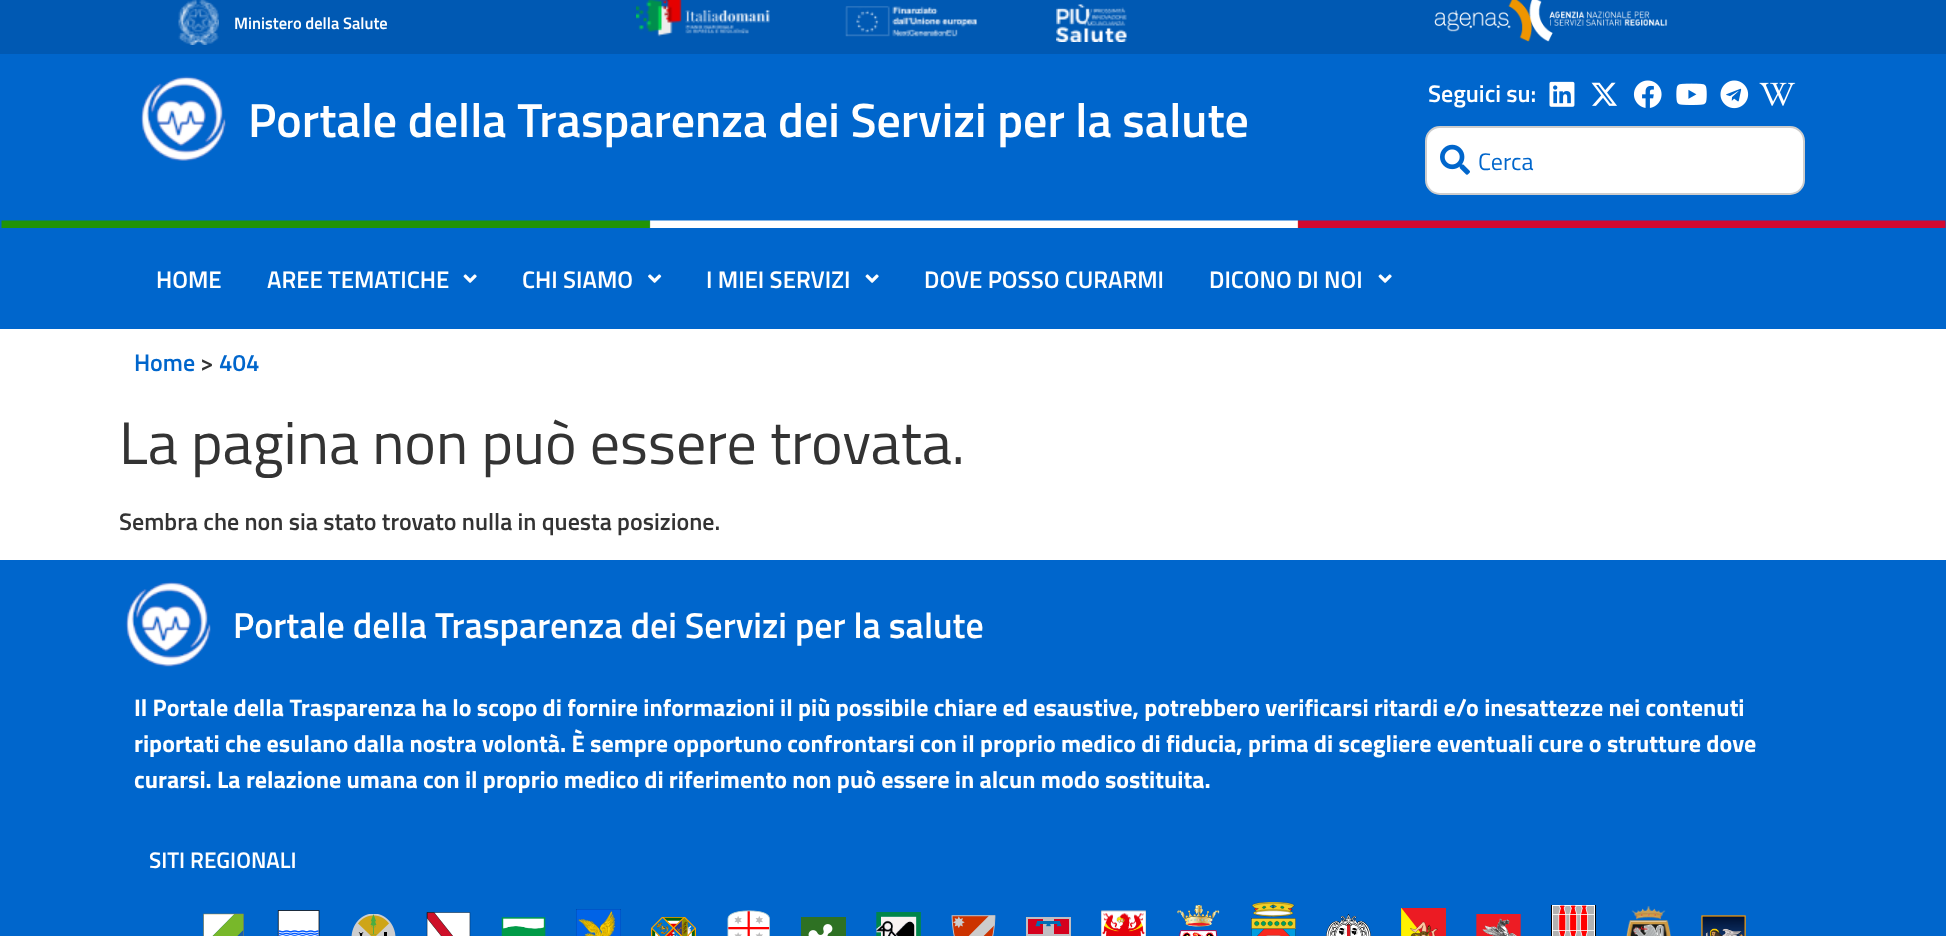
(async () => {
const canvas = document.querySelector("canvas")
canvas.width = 1946
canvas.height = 936
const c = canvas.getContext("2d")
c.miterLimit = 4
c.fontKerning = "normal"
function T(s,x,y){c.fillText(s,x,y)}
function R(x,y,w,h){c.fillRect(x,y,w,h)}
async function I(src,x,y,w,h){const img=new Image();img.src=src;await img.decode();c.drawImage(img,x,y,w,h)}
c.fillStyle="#fff"
R(0,0,1946,936)
c.fillStyle="#0059b3"
R(0,0,1946,54)
await I("1.png",178,0,41,45)
c.font="600 16.5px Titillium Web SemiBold"
c.fillStyle="#fff"
T("Ministero della Salute",234,29)
await I("2.png",636,0,134,37)
await I("3.png",845,6,133,31)
await I("4.png",1056,4,71,38)
await I("5.png",1434,0,234,42)
c.fillStyle="#06c"
R(0,54,1946,275)
await I("6.png",140,76,86,85)
c.font="600 48px Titillium Web SemiBold"
c.fillStyle="#fff"
T("Portale della Trasparenza dei Servizi per la salute",248,137)
c.font="600 24px Titillium Web SemiBold"
T("Seguici su:",1428,102)
await I("7.png",1549,81,26,26)
await I("8.png",1591,82,26,24)
await I("9.png",1633,80,29,28)
await I("10.png",1676,83,31,22)
await I("11.png",1720,80,29,29)
await I("12.png",1759,82,37,24)
c.beginPath()
c.roundRect(1426,127,378,67,14)
c.fill()
c.strokeStyle="#cdcdcd"
c.lineWidth=2
c.stroke()
await I("13.png",1440,144,30,31)
c.font="24px Titillium Web"
c.fillStyle="#06c"
T("Cerca",1478,170)
await I("14.png",1,220,1945,8)
c.font="600 24px Titillium Web SemiBold"
c.fillStyle="#fff"
T("HOME",156,288)
T("AREE TEMATICHE",267,288)
await I("15.png",463,274,14,9)
T("CHI SIAMO",522,288)
await I("16.png",648,274,14,9)
T("I MIEI SERVIZI",706,288)
await I("15.png",865,274,14,9)
T("DOVE POSSO CURARMI",924,288)
T("DICONO DI NOI",1209,288)
await I("15.png",1378,274,14,9)
c.fillStyle="#06c"
T("Home",134,371)
c.fillStyle="#333"
T(">",200,371)
c.fillStyle="#06c"
T("404",219,371)
c.font="60px Titillium Web"
c.fillStyle="#333"
T("La pagina non può essere trovata.",119,464)
c.font="600 24px Titillium Web SemiBold"
T("Sembra che non sia stato trovato nulla in questa posizione.",119,530)
c.fillStyle="#06c"
R(0,560,1946,376)
await I("17.png",125,581,86,86)
c.font="600 36px Titillium Web SemiBold"
c.fillStyle="#fff"
T("Portale della Trasparenza dei Servizi per la salute",233,638)
c.font="bold 24px Titillium Web"
T("Il Portale della Trasparenza ha lo scopo di fornire informazioni il più possibile chiare ed esaustive, potrebbero verificarsi ritardi e/o inesattezze nei contenuti",134,716)
T("riportati che esulano dalla nostra volontà. È sempre opportuno confrontarsi con il proprio medico di fiducia, prima di scegliere eventuali cure o strutture dove",134,752)
T("curarsi. La relazione umana con il proprio medico di riferimento non può essere in alcun modo sostituita.",134,788)
c.font="600 22.5px Titillium Web SemiBold"
T("SITI REGIONALI",149,868)
await I("18.png",203,913,41,23)
await I("19.png",277,910,43,26)
await I("20.png",351,914,45,22)
await I("21.png",426,912,45,24)
await I("22.png",501,917,45,19)
await I("23.png",576,909,45,27)
await I("24.png",651,917,45,19)
await I("25.png",727,910,43,26)
await I("26.png",801,917,45,19)
await I("27.png",876,912,45,24)
await I("28.png",951,915,45,21)
await I("29.png",1026,917,45,19)
await I("30.png",1101,910,45,26)
await I("31.png",1177,905,43,31)
await I("32.png",1251,902,45,34)
await I("33.png",1326,914,45,22)
await I("34.png",1401,908,45,28)
await I("35.png",1476,914,45,22)
await I("36.png",1551,905,45,31)
await I("37.png",1626,906,45,30)
await I("38.png",1701,915,45,21)
})()
